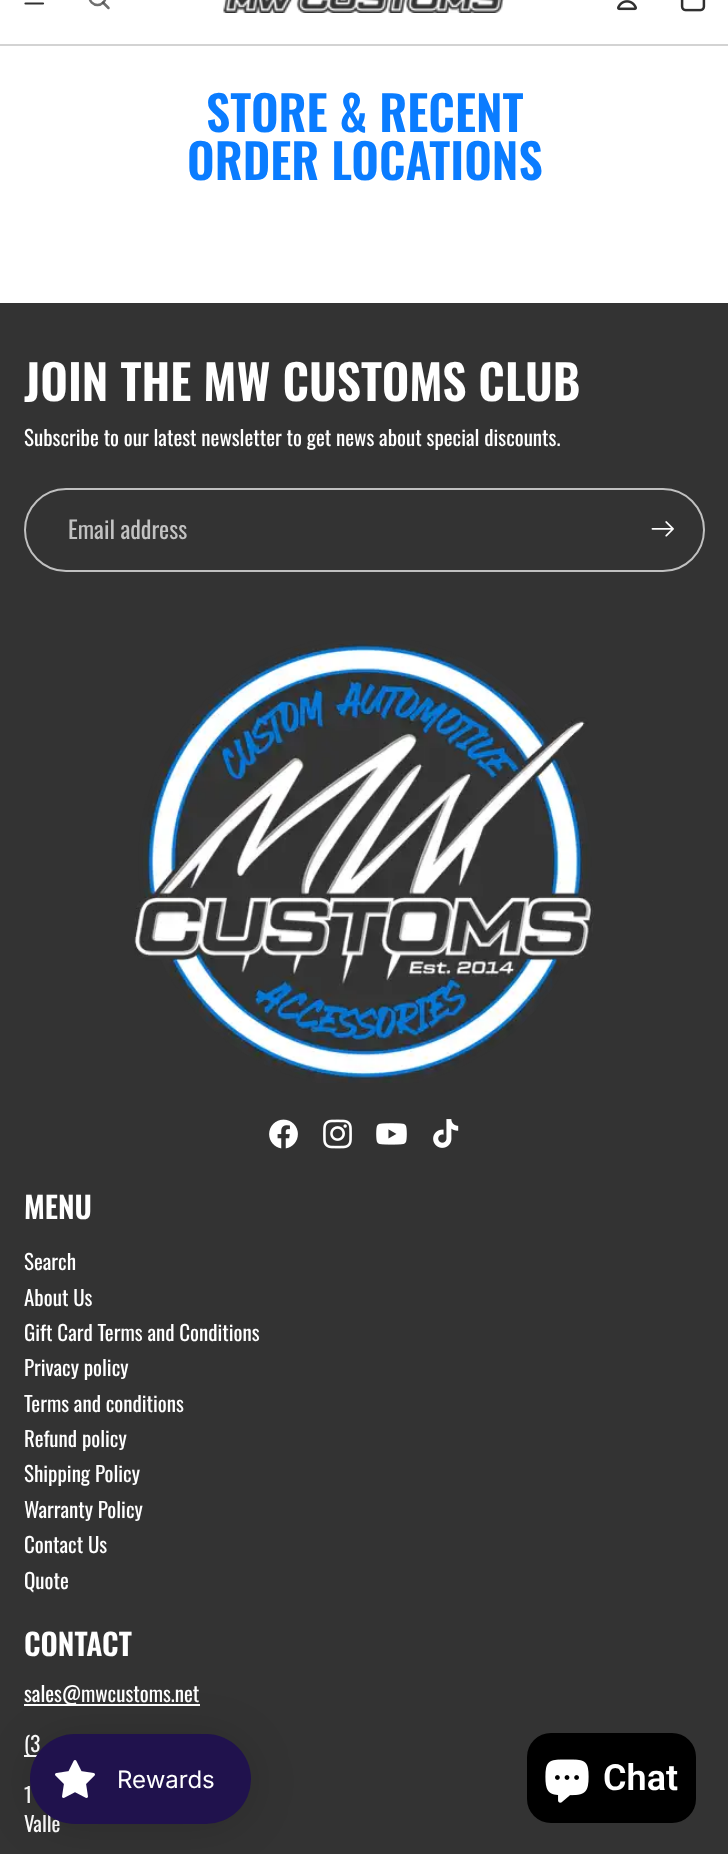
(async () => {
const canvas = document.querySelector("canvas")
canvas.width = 728
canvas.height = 1854
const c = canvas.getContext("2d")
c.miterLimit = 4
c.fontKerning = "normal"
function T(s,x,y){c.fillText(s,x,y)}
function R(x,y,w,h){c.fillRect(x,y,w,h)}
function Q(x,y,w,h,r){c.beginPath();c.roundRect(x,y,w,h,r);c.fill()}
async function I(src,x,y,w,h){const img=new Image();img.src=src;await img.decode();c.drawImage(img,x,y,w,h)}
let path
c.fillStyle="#fff"
R(0,0,728,1854)
c.fillStyle="#d3d3d3"
R(0,44,728,2)
path = new Path2D("M25.5 3.5h17.5")
c.strokeStyle="#303030"
c.lineWidth=2.2
c.lineCap="round"
c.stroke(path)
c.beginPath()
c.arc(97.5,-3,8,0,7)
c.strokeStyle="#6f6f6f"
c.lineWidth=2.5
c.stroke()
path = new Path2D("M103 2.5l5.5 5.5")
c.strokeStyle="#4d4d4dcf"
c.lineJoin="round"
c.stroke(path)
await I("1.png",223,0,281,13)
await I("2.png",617,0,20,11)
await I("3.png",680,0,26,12)
c.font="600 48px Oswald"
c.fillStyle="#0a7cff"
T("STORE & RECENT",206,132)
T("ORDER LOCATIONS",187,180)
c.fillStyle="#333"
R(0,303,728,1551)
c.fillStyle="#fff"
T("JOIN THE MW CUSTOMS CLUB",24,401)
c.font="21px Oswald"
T("Subscribe to our latest newsletter to get news about special discounts.",24,446)
c.beginPath()
c.roundRect(25,489,679,82,41)
c.strokeStyle="#c0c0c0"
c.lineWidth=2
c.lineJoin="miter"
c.stroke()
c.font="24px Oswald"
c.fillStyle="#c2c2c2"
T("Email address",68,539)
await I("4.png",651,521,23,16)
await I("5.png",134,640,460,443)
await I("6.png",269,1119,29,30)
await I("7.png",323,1119,29,30)
await I("8.png",376,1123,31,22)
await I("9.png",433,1119,26,29)
c.font="600 30px Oswald"
c.fillStyle="#fff"
T("MENU",24,1219)
c.font="21px Oswald"
T("Search",24,1270)
T("About Us",24,1306)
T("Gift Card Terms and Conditions",24,1341)
T("Privacy policy",24,1376)
T("Terms and conditions",24,1412)
T("Refund policy",24,1447)
T("Shipping Policy",24,1482)
T("Warranty Policy",24,1518)
T("Contact Us",24,1553)
T("Quote",24,1589)
c.font="600 30px Oswald"
T("CONTACT",24,1656)
R(24,1704,176,2)
c.font="21px Oswald"
T("sales@mwcustoms.net",24,1702)
R(24,1755,13,2)
T("(3",24,1752)
T("1",24,1803)
T("Valle",24,1832)
c.fillStyle="#000"
Q(527,1733,169,90,24)
await I("10.png",545,1759,44,44)
c.font="600 36px Roboto"
c.fillStyle="#fff"
T("Chat",603,1790)
c.fillStyle="#00000026"
c.filter="blur(22.5px)"
c.beginPath()
c.roundRect(30,1737,221,90,45)
c.fill()
c.filter="none"
c.fillStyle="#20124d"
Q(30,1734,221,90,45)
await I("11.png",55,1760,40,38)
c.font="24px Inter"
c.fillStyle="#fff"
T("Rewards",117,1788)
})()
